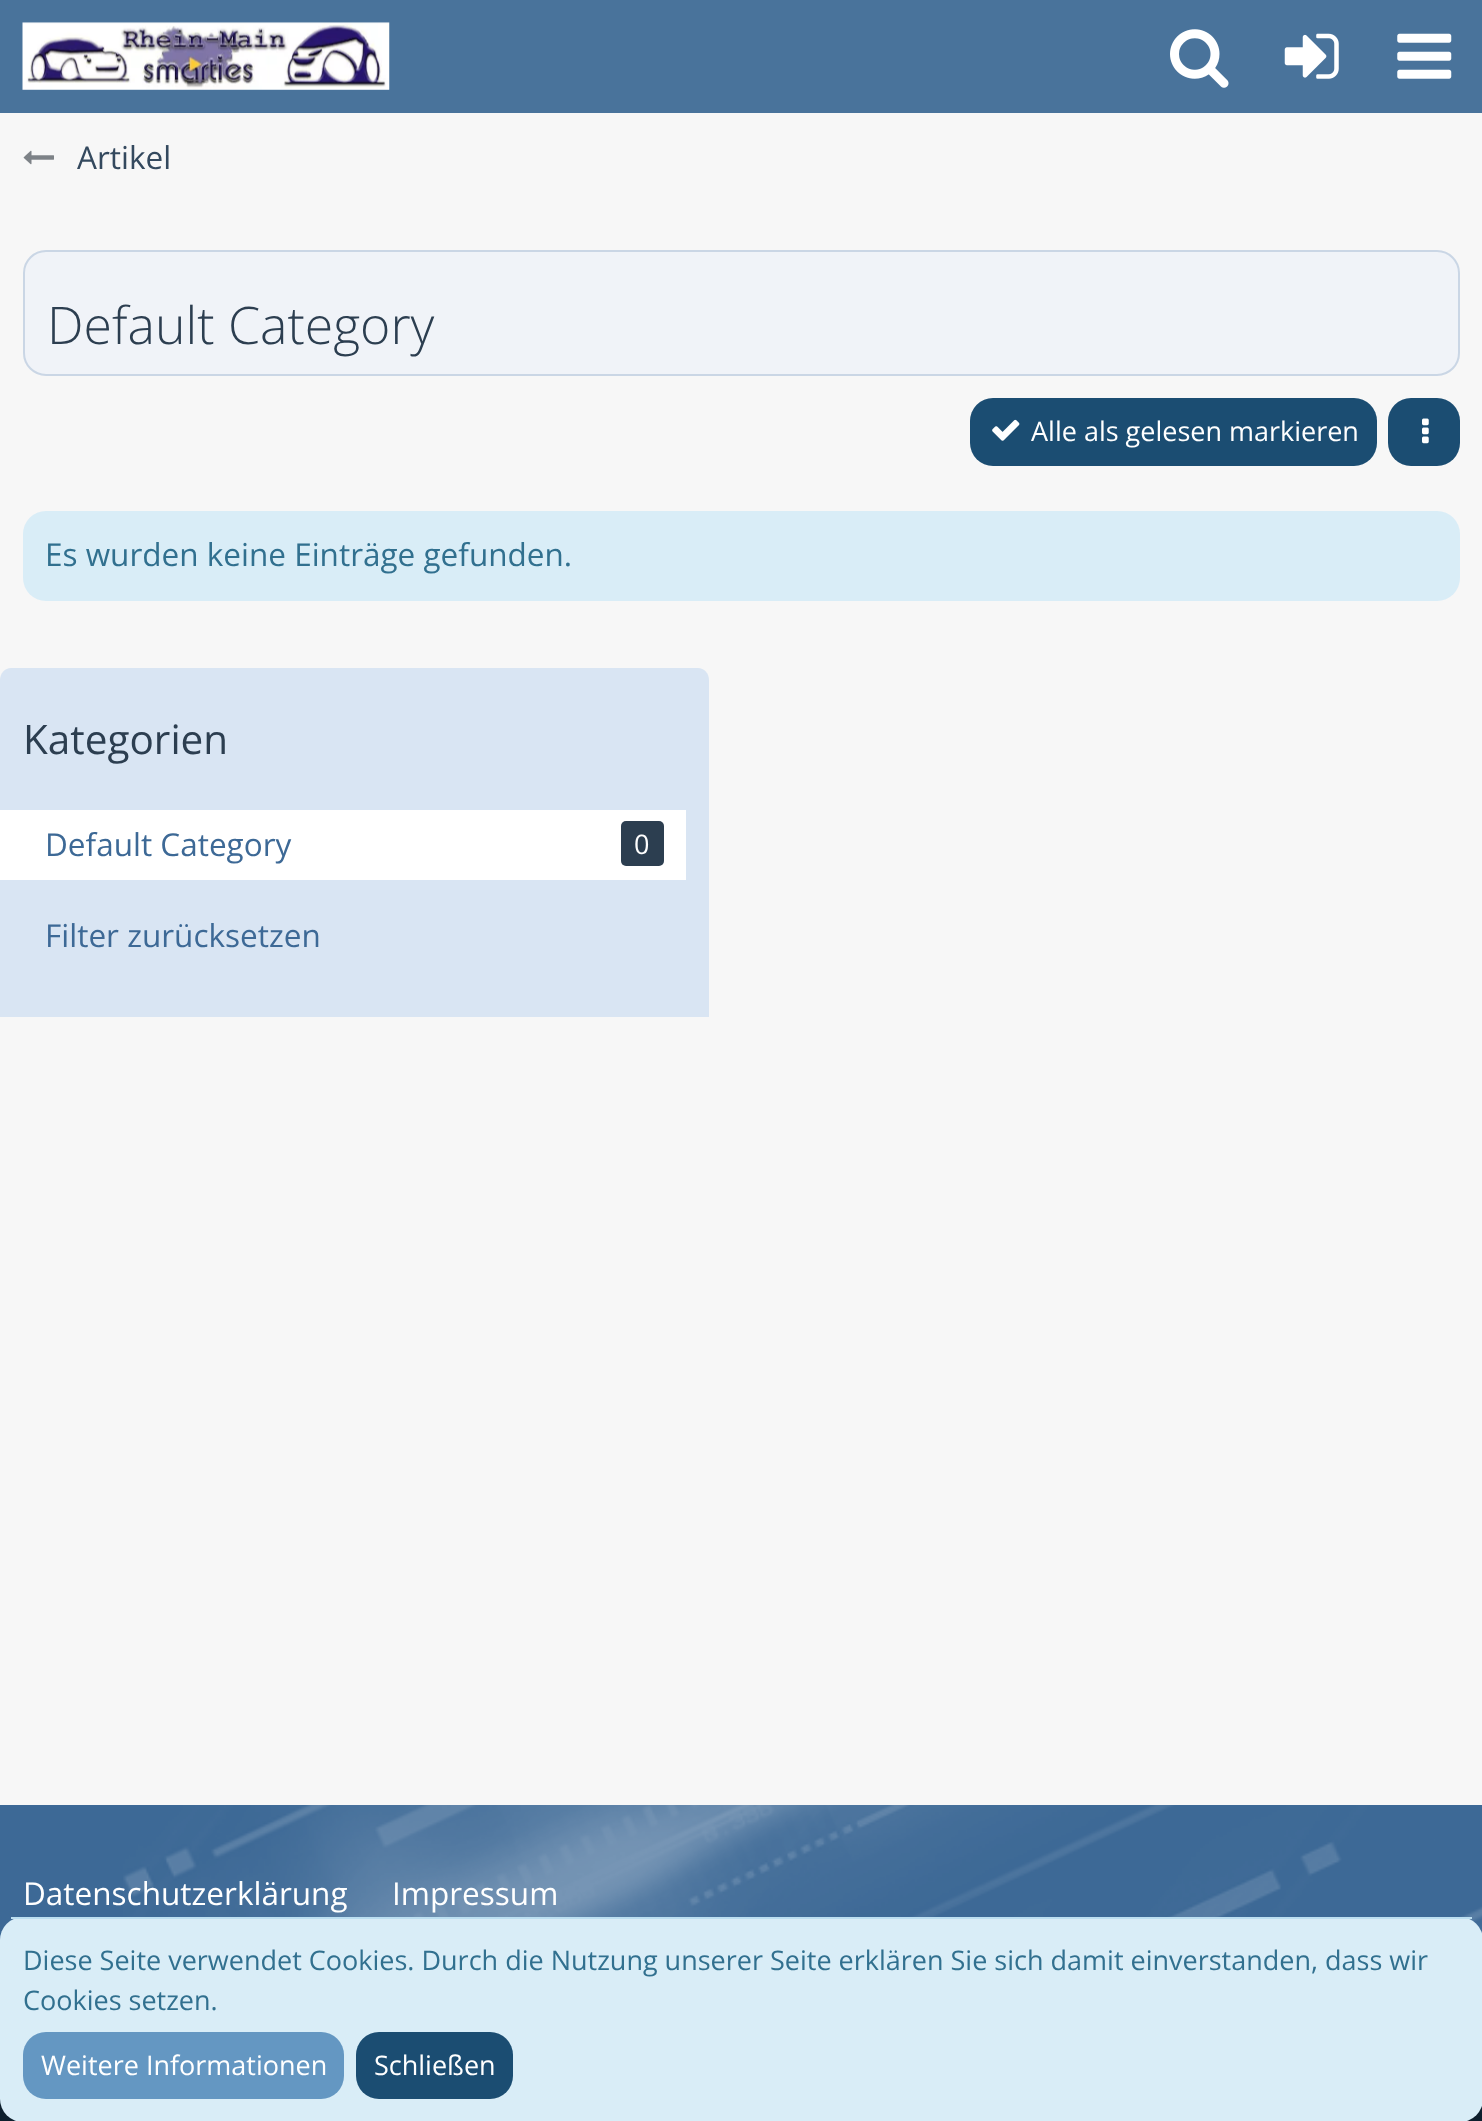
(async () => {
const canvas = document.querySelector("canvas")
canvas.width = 1482
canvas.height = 2121
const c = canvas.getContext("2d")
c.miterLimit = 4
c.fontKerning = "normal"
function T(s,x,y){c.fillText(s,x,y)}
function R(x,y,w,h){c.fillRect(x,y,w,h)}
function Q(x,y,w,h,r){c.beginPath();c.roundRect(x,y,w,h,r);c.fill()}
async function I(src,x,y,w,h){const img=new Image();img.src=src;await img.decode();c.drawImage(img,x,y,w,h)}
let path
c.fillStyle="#f7f7f7"
R(0,0,1482,2121)
c.fillStyle="#49739b"
R(0,0,1482,113)
await I("1.png",22,22,368,68)
await I("2.png",1170,29,59,59)
await I("3.png",1284,33,55,46)
await I("4.png",1397,33,55,46)
await I("5.png",23,150,31,15)
c.font="31.5px Open Sans"
c.fillStyle="#34495e"
T("Artikel",77,169)
c.fillStyle="#f0f3f8"
Q(23,250,1437,126,23)
c.beginPath()
c.roundRect(24,251,1435,124,22)
c.strokeStyle="#33669933"
c.lineWidth=2
c.stroke()
c.font="300 51.75px Open Sans"
c.fillStyle="#2c3e50"
T("Default Category",47,344)
c.fillStyle="#1b4d72"
Q(970,398,407,68,23)
await I("6.png",992,419,28,22)
c.font="27px Open Sans"
c.fillStyle="#fff"
T("Alle als gelesen markieren",1031,441)
c.fillStyle="#1b4d72"
Q(1388,398,72,68,23)
await I("7.png",1422,418,7,26)
c.fillStyle="#d9edf7"
Q(23,511,1437,90,23)
c.font="31.5px Open Sans"
c.fillStyle="#31708f"
T("Es wurden keine Einträge gefunden.",45,566)
c.fillStyle="#d9e5f3"
path = new Path2D("M11 668h687c6 0 11 5 11 12v337h-709v-337c0-7 5-12 11-12z")
c.fill(path)
c.font="40.5px Open Sans"
c.fillStyle="#2c3e50"
T("Kategorien",23,754)
c.fillStyle="#fff"
R(0,810,686,70)
c.font="31.5px Open Sans"
c.fillStyle="#3d6996"
T("Default Category",45,856)
c.fillStyle="#2c3e50"
Q(621,821,43,45,5)
c.font="27px Open Sans"
c.fillStyle="#fff"
T("0",634,854)
c.font="31.5px Open Sans"
c.fillStyle="#3d6996"
T("Filter zurücksetzen",45,947)
R(0,1805,1482,135)
await I("8.png",123,1805,1359,129)
c.fillStyle="#fff"
T("Datenschutzerklärung",23,1905)
T("Impressum",392,1905)
c.fillStyle="#0d1f2d"
R(0,2099,1482,22)
c.fillStyle="#d9edf7"
Q(0,1917,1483,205,23)
c.fillStyle="#bcdff1"
R(11,1917,1461,2)
c.font="27px Open Sans"
c.fillStyle="#31708f"
T("Diese Seite verwendet Cookies. Durch die Nutzung unserer Seite erklären Sie sich damit einverstanden, dass wir",23,1970)
T("Cookies setzen.",23,2010)
c.fillStyle="#6497c2"
Q(23,2032,321,67,23)
c.fillStyle="#fff"
T("Weitere Informationen",41,2075)
c.fillStyle="#1b4d72"
Q(356,2032,157,67,23)
c.fillStyle="#fff"
T("Schließen",374,2075)
})()
